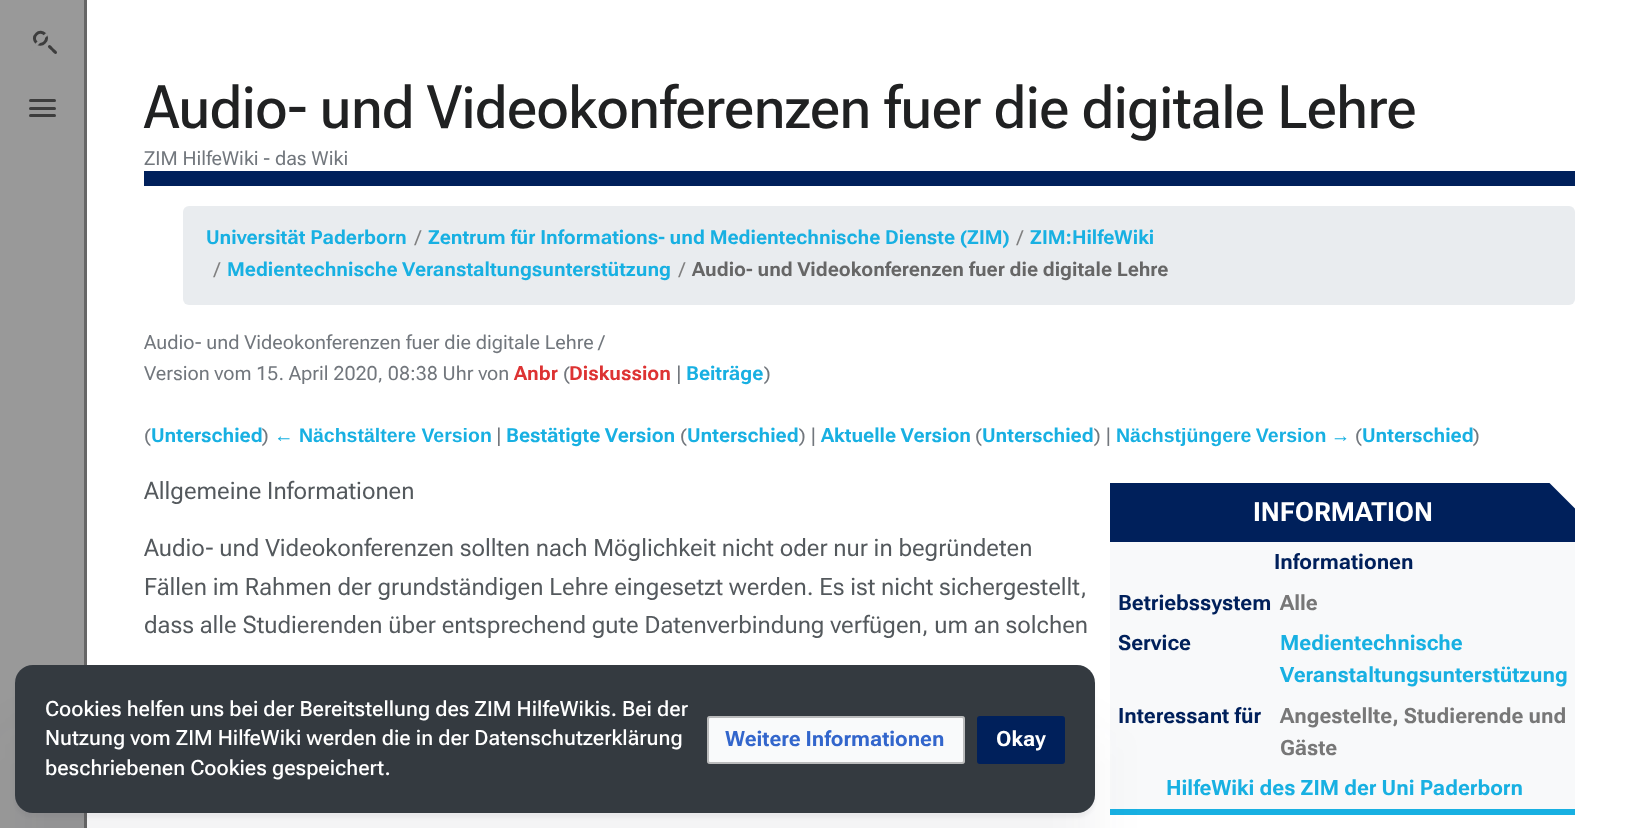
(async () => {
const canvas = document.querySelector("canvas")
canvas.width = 1635
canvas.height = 828
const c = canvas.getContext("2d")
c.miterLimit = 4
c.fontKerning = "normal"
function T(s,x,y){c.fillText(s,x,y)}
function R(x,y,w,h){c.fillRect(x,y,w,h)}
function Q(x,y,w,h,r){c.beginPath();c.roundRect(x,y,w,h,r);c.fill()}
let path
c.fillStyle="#fff"
R(0,0,1635,828)
c.fillStyle="#999"
R(0,0,84,828)
c.fillStyle="#666"
R(84,0,3,828)
c.fillStyle="#3d3d3d"
path = new Path2D("M48.5 45.5c1.5-2 4 2 5 3c1 1 5 3.5 3 5c-1.5 2-4-2-5-3c-1-1-5-3.5-3-5z")
c.fill(path)
path = new Path2D("M36.5 34c5.5-5.5 14 3 8 8.5c-5.5 5.5-14-3-8-8.5z")
c.strokeStyle="#3d3d3d"
c.lineWidth=3
c.stroke(path)
c.fillStyle="#999"
path = new Path2D("M30.5 50.5c-.5-.5-.5-1.5 0-2l15-15c.5-.5 1.5-.5 2 0c.5 .5 .5 1.5 0 2l-15 15c-.5 .5-1.5 .5-2 0z")
c.fill(path)
c.fillStyle="#3d3d3d"
Q(29,99,27,3,1.5)
Q(29,107,27,3,1.5)
Q(29,114,27,3,1.5)
c.fillStyle="#00205b"
R(144,171,1431,15)
c.font="500 60px Roboto Flex"
c.fillStyle="#202122"
T("Audio- und Videokonferenzen fuer die digitale Lehre",144,128)
c.font="19.5px Roboto Flex"
c.fillStyle="#72777d"
T("ZIM HilfeWiki - das Wiki",144,165)
c.fillStyle="#e9ecef"
Q(183,206,1392,99,6)
c.font="bold 19.5px 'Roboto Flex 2'"
c.fillStyle="#18b0e2"
T("Universität Paderborn",206,244)
c.font="19.5px Roboto Flex"
c.fillStyle="#808080"
T("/",415,244)
c.font="bold 19.5px 'Roboto Flex 2'"
c.fillStyle="#18b0e2"
T("Zentrum für Informations- und Medientechnische Dienste (ZIM)",428,244)
c.font="19.5px Roboto Flex"
c.fillStyle="#808080"
T("/",1017,244)
c.font="bold 19.5px 'Roboto Flex 2'"
c.fillStyle="#18b0e2"
T("ZIM:HilfeWiki",1030,244)
c.font="19.5px Roboto Flex"
c.fillStyle="#808080"
T("/",214,276)
c.font="bold 19.5px 'Roboto Flex 2'"
c.fillStyle="#18b0e2"
T("Medientechnische Veranstaltungsunterstützung",227,276)
c.font="19.5px Roboto Flex"
c.fillStyle="#808080"
T("/",679,276)
c.font="bold 19.5px 'Roboto Flex 2'"
c.fillStyle="#666"
T("Audio- und Videokonferenzen fuer die digitale Lehre",692,276)
c.font="19.5px Roboto Flex"
c.fillStyle="#72777d"
T("Audio- und Videokonferenzen fuer die digitale Lehre /",144,349)
T("Version vom 15. April 2020, 08:38 Uhr von",144,380)
c.font="bold 19.5px 'Roboto Flex 2'"
c.fillStyle="#d33"
T("Anbr",514,380)
c.font="19.5px Roboto Flex"
c.fillStyle="#72777d"
T("(",563,380)
c.font="bold 19.5px 'Roboto Flex 2'"
c.fillStyle="#d33"
T("Diskussion",569,380)
c.font="19.5px Roboto Flex"
c.fillStyle="#72777d"
T("|",676,380)
c.font="bold 19.5px 'Roboto Flex 2'"
c.fillStyle="#18b0e2"
T("Beiträge",686,380)
c.font="19.5px Roboto Flex"
c.fillStyle="#72777d"
T(")",764,380)
T("(",144,442)
c.font="bold 19.5px 'Roboto Flex 2'"
c.fillStyle="#18b0e2"
T("Unterschied",151,442)
c.font="19.5px Roboto Flex"
c.fillStyle="#72777d"
T(")",262,442)
c.font="bold 19.5px Liberation Sans"
c.fillStyle="#18b0e2"
T("← Nächstältere Version",274,442)
c.font="19.5px Roboto Flex"
c.fillStyle="#72777d"
T("|",496,442)
c.font="bold 19.5px 'Roboto Flex 2'"
c.fillStyle="#18b0e2"
T("Bestätigte Version",506,442)
c.font="19.5px Roboto Flex"
c.fillStyle="#72777d"
T("(",680,442)
c.font="bold 19.5px 'Roboto Flex 2'"
c.fillStyle="#18b0e2"
T("Unterschied",687,442)
c.font="19.5px Roboto Flex"
c.fillStyle="#72777d"
T(") |",799,442)
c.font="bold 19.5px 'Roboto Flex 2'"
c.fillStyle="#18b0e2"
T("Aktuelle Version",821,442)
c.font="19.5px Roboto Flex"
c.fillStyle="#72777d"
T("(",975,442)
c.font="bold 19.5px 'Roboto Flex 2'"
c.fillStyle="#18b0e2"
T("Unterschied",982,442)
c.font="19.5px Roboto Flex"
c.fillStyle="#72777d"
T(") |",1094,442)
c.wordSpacing="-1px"
c.font="bold 19.5px Liberation Sans"
c.fillStyle="#18b0e2"
T("Nächstjüngere Version →",1116,442)
c.wordSpacing="0px"
c.font="19.5px Roboto Flex"
c.fillStyle="#72777d"
T("(",1355,442)
c.font="bold 19.5px 'Roboto Flex 2'"
c.fillStyle="#18b0e2"
T("Unterschied",1362,442)
c.font="19.5px Roboto Flex"
c.fillStyle="#72777d"
T(")",1473,442)
c.font="24px 'Roboto Flex 2'"
c.fillStyle="#54595d"
T("Allgemeine Informationen",144,499)
T("Audio- und Videokonferenzen sollten nach Möglichkeit nicht oder nur in begründeten",144,556)
T("Fällen im Rahmen der grundständigen Lehre eingesetzt werden. Es ist nicht sichergestellt,",144,595)
T("dass alle Studierenden über entsprechend gute Datenverbindung verfügen, um an solchen",144,633)
c.fillStyle="#f8f9fa"
R(1110,542,465,267)
c.fillStyle="#18b0e2"
R(1110,809,465,6)
c.fillStyle="#00205b"
R(1110,483,465,59)
c.fillStyle="#fff"
path = new Path2D("M1549.5 483h25.5v25.5z")
c.fill(path)
c.font="bold 26.5px 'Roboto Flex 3'"
T("INFORMATION",1253,521)
c.font="bold 21.1px Roboto Flex"
c.fillStyle="#00205b"
T("Informationen",1274,569)
T("Betriebssystem",1118,610)
c.fillStyle="#777"
T("Alle",1280,610)
c.fillStyle="#00205b"
T("Service",1118,650)
c.fillStyle="#18b0e2"
T("Medientechnische",1280,650)
T("Veranstaltungsunterstützung",1280,682)
c.fillStyle="#00205b"
T("Interessant für",1118,723)
c.fillStyle="#777"
T("Angestellte, Studierende und",1280,723)
T("Gäste",1280,755)
c.fillStyle="#18b0e2"
T("HilfeWiki des ZIM der Uni Paderborn",1166,795)
c.fillStyle="#2e31380d"
c.filter="blur(25px)"
c.beginPath()
c.roundRect(15,728,1080,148,18)
c.fill()
c.filter="none"
c.filter="blur(1.5px)"
c.beginPath()
c.roundRect(15,669,1080,149,18)
c.fill()
c.filter="none"
c.fillStyle="#343a40"
Q(15,665,1080,148,18)
c.font="500 21px 'Roboto Flex 2'"
c.fillStyle="#fff"
T("Cookies helfen uns bei der Bereitstellung des ZIM HilfeWikis. Bei der",45,716)
T("Nutzung vom ZIM HilfeWiki werden die in der Datenschutzerklärung",45,745)
T("beschriebenen Cookies gespeichert.",45,775)
c.fillStyle="#f9fafb"
Q(707,716,258,48,3)
c.beginPath()
c.roundRect(708,717,256,46,2)
c.strokeStyle="#00000040"
c.lineWidth=2
c.stroke()
c.font="bold 21px Roboto Flex"
c.fillStyle="#36c"
T("Weitere Informationen",725,746)
c.fillStyle="#00205b"
c.beginPath()
c.roundRect(978,717,86,46,2)
c.fill()
c.strokeStyle="#00205b"
c.stroke()
c.fillStyle="#fff"
T("Okay",996,746)
})()
